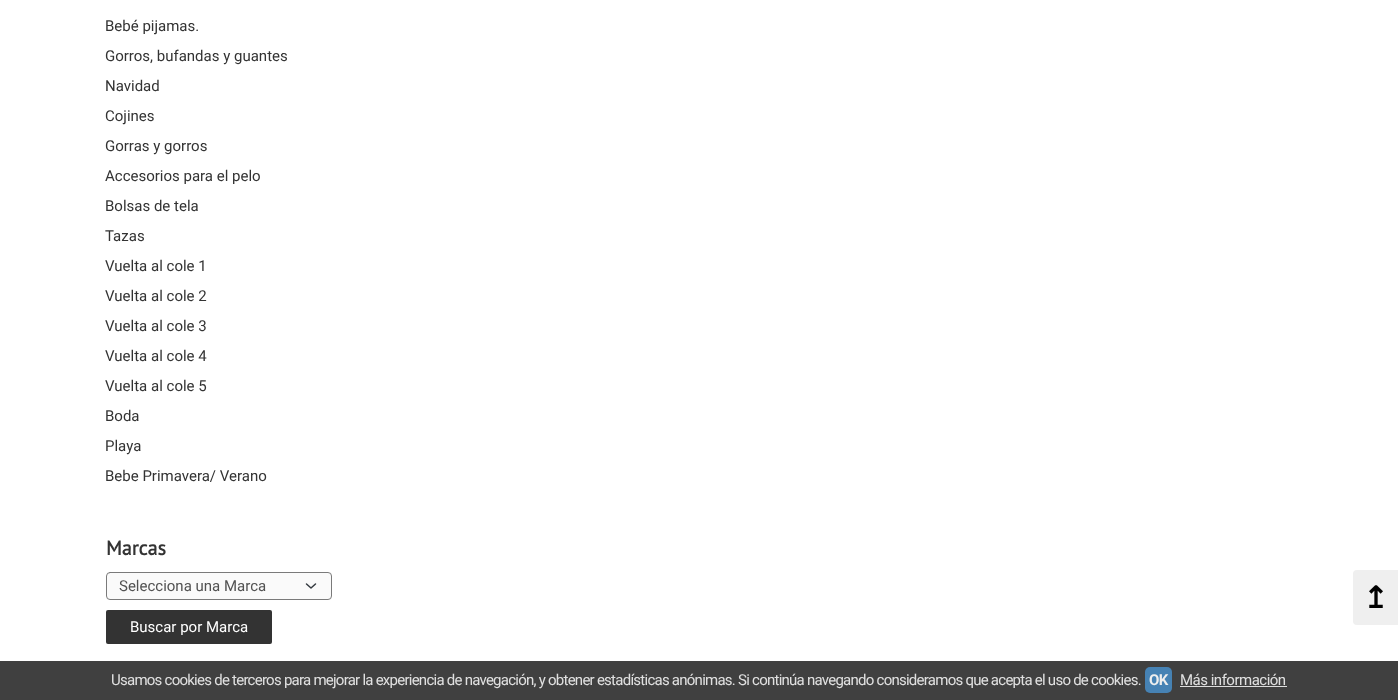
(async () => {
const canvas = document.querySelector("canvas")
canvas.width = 1398
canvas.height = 700
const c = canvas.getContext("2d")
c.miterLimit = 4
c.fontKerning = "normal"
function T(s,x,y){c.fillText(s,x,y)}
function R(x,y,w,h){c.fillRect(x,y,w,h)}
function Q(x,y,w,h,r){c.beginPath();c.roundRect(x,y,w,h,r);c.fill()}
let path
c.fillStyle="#fff"
R(0,0,1398,700)
c.font="15px Roboto"
c.fillStyle="#333"
T("Bebé pijamas.",105,31)
T("Gorros, bufandas y guantes",105,61)
T("Navidad",105,91)
T("Cojines",105,121)
T("Gorras y gorros",105,151)
T("Accesorios para el pelo",105,181)
T("Bolsas de tela",105,211)
T("Tazas",105,241)
T("Vuelta al cole 1",105,271)
T("Vuelta al cole 2",105,301)
T("Vuelta al cole 3",105,331)
T("Vuelta al cole 4",105,361)
T("Vuelta al cole 5",105,391)
T("Boda",105,421)
T("Playa",105,451)
T("Bebe Primavera/ Verano",105,481)
c.font="bold 20px PT Sans"
T("Marcas",106,555)
c.fillStyle="#fafafa"
Q(106,572,226,28,4)
path = new Path2D("M306.5 584l4.5 4l4.5-4")
c.strokeStyle="#343a40"
c.lineWidth=1.5
c.lineCap="round"
c.lineJoin="round"
c.stroke(path)
c.beginPath()
c.roundRect(106.5,572.5,225,27,3.5)
c.strokeStyle="#7a7a7a"
c.lineWidth=1
c.lineJoin="miter"
c.stroke()
c.font="15px Roboto"
c.fillStyle="#525252"
T("Selecciona una Marca",119,591)
c.fillStyle="#333"
Q(106,610,166,34,2)
c.fillStyle="#fff"
T("Buscar por Marca",130,632)
c.fillStyle="#efefef"
c.beginPath()
c.roundRect(1353,570,45,55,[4,0,0,4])
c.fill()
c.font="bold 30px DejaVu Sans"
c.fillStyle="#000"
T("↥",1363,608)
c.fillStyle="#404040"
R(0,661,1398,39)
c.letterSpacing="-0.75px"
c.font="15px Roboto"
c.fillStyle="#e0e0e0"
T("Usamos cookies de terceros para mejorar la experiencia de navegación, y obtener estadísticas anónimas. Si continúa navegando consideramos que acepta el uso de cookies.",111,685)
c.fillStyle="#4682b4"
Q(1145,667,27,26,5)
c.letterSpacing="-0.5px"
c.font="bold 15px Roboto"
c.fillStyle="#eee"
T("OK",1149,685)
c.font="15px Roboto"
c.fillStyle="#e0e0e0"
T("Más información",1180,685)
c.fillStyle="#ddd"
R(1180,686,107,1)
})()
